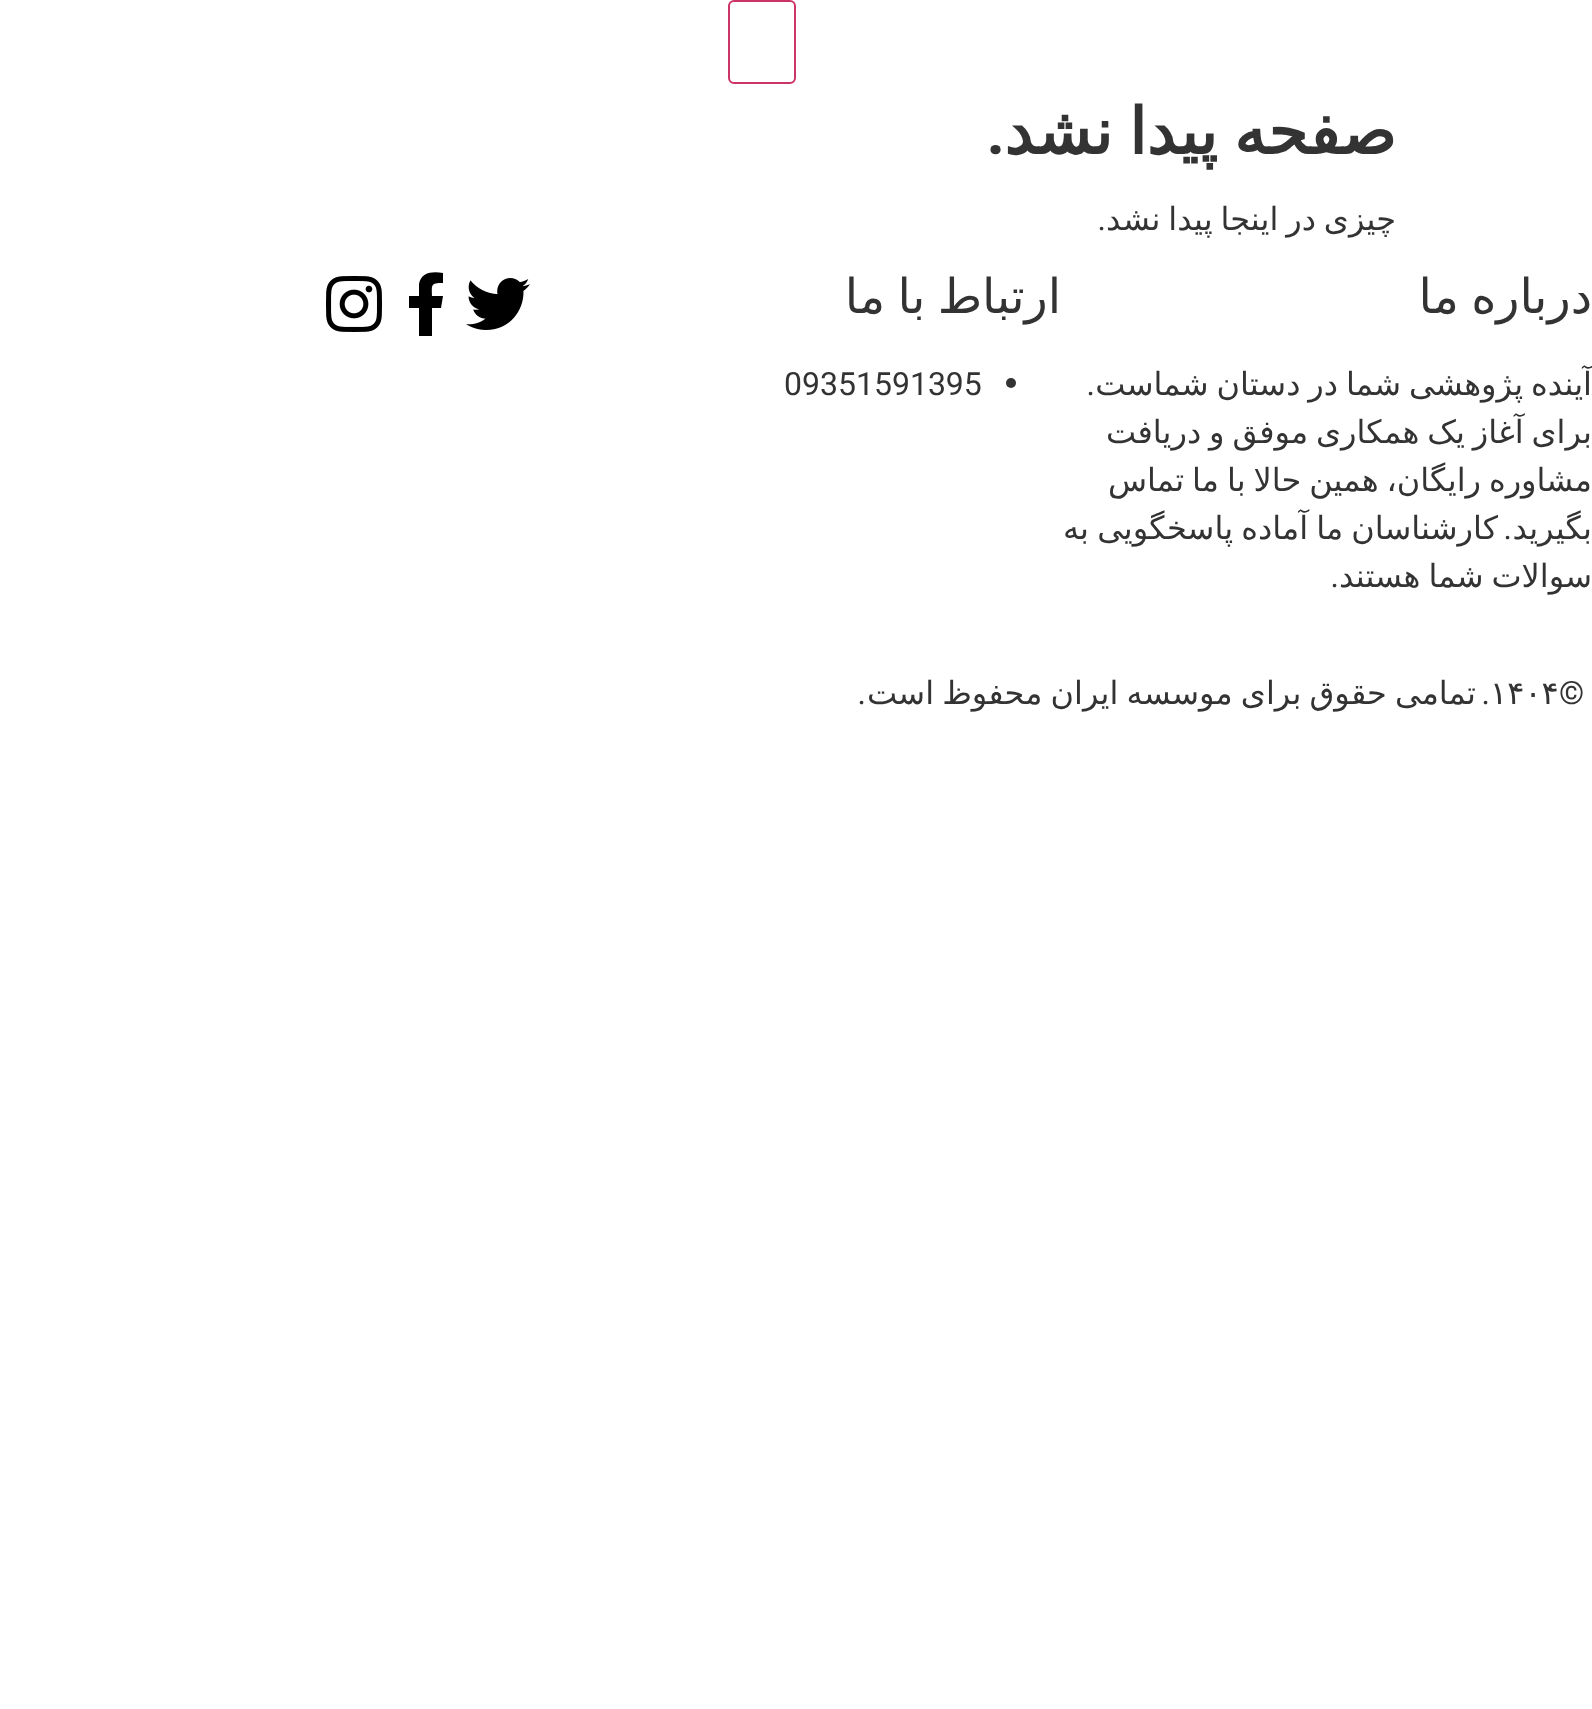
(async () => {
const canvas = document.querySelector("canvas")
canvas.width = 1592
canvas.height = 1709
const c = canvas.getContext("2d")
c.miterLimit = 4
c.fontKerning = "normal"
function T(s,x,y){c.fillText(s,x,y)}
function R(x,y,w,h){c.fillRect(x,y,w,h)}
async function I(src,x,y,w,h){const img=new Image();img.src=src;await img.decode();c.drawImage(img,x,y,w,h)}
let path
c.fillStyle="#fff"
R(0,0,1592,1709)
c.beginPath()
c.roundRect(729,1,66,82,5)
c.strokeStyle="#c36"
c.lineWidth=2
c.stroke()
c.wordSpacing="-4px"
c.direction="rtl"
c.font="bold 64px DejaVu Sans"
c.fillStyle="#333"
T("صفحه پیدا نشد",1396,154)
c.wordSpacing="0px"
c.font="bold 64px Roboto"
T(".",1005,154)
c.wordSpacing="-2.25px"
c.font="32px DejaVu Sans"
T("چیزی در اینجا پیدا نشد",1396,230)
c.wordSpacing="0px"
c.font="32px Roboto"
T(".",1106,230)
c.wordSpacing="-3px"
c.font="48px DejaVu Sans"
T("درباره ما",1592,313)
c.wordSpacing="-2.25px"
c.font="32px DejaVu Sans"
T("آینده پژوهشی شما در دستان شماست",1592,395)
c.wordSpacing="0px"
c.font="32px Roboto"
T(".",1095,395)
c.wordSpacing="-2.25px"
c.font="32px DejaVu Sans"
T("برای آغاز یک همکاری موفق و دریافت",1592,443)
T("مشاوره رایگان، همین حالا با ما تماس",1592,491)
c.wordSpacing="0px"
T("بگیرید",1592,539)
c.font="32px Roboto"
T(".",1512,539)
c.wordSpacing="-2px"
c.font="32px DejaVu Sans"
T("کارشناسان ما آماده پاسخگویی به",1498,539)
c.wordSpacing="-2.25px"
T("سوالات شما هستند",1592,587)
c.wordSpacing="0px"
c.font="32px Roboto"
T(".",1339,587)
c.wordSpacing="-3px"
c.font="48px DejaVu Sans"
T("ارتباط با ما",1061,313)
c.beginPath()
c.arc(1011,383,5,0,7)
c.fill()
c.wordSpacing="0px"
c.direction="ltr"
c.font="32px Roboto"
T("09351591395",784,395)
await I("1.png",466,278,64,52)
c.fillStyle="#000"
path = new Path2D("M441 308l2-12h-11c0-11-2-13 11-13v-10c-10-2-22-1-24 11v12h-10v12h10v28h13v-28z")
c.fill(path)
await I("2.png",326,276,56,56)
c.fillStyle="#333"
T("©",1559,704)
c.font="32px DejaVu Sans"
T("۱۴۰۴",1490,704)
c.direction="rtl"
c.font="32px Roboto"
T(".",1490,704)
c.wordSpacing="-2px"
c.font="32px DejaVu Sans"
T("تمامی حقوق برای موسسه ایران محفوظ است",1476,704)
c.wordSpacing="0px"
c.font="32px Roboto"
T(".",866,704)
})()
